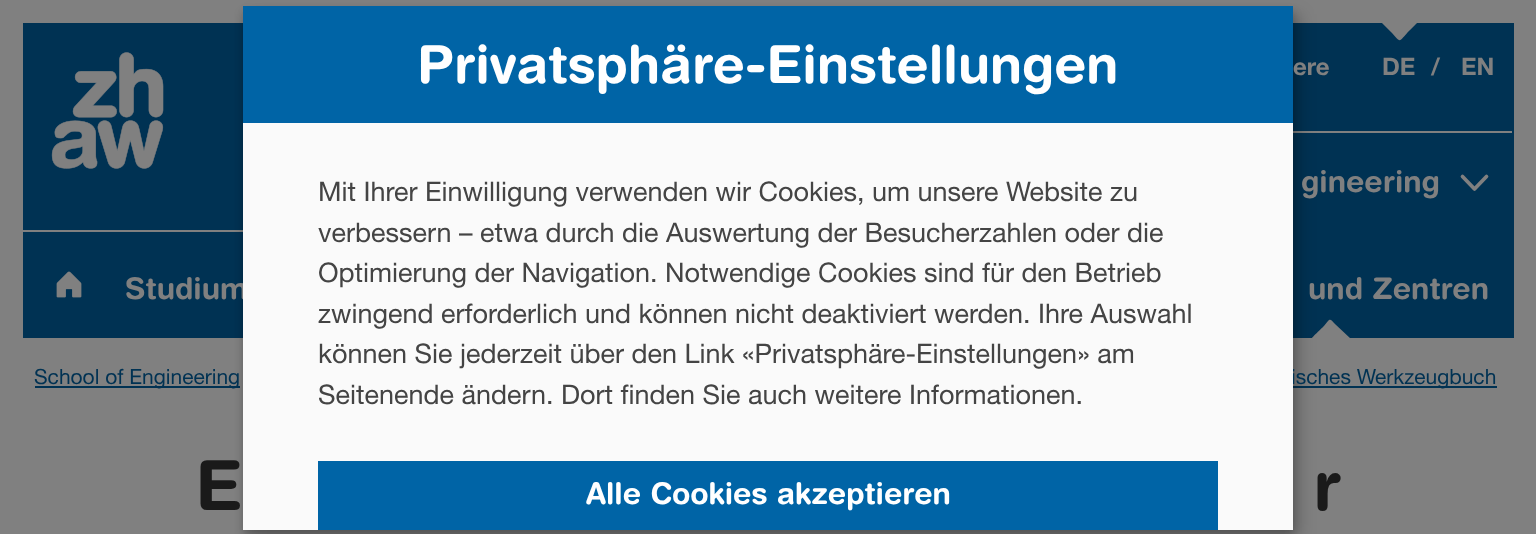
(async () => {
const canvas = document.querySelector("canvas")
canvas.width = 1536
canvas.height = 534
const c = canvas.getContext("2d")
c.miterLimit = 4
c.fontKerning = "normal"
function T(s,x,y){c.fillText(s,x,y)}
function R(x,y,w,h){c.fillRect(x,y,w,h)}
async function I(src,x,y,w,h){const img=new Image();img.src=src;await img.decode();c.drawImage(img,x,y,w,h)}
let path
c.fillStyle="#808080"
R(0,0,1536,534)
c.fillStyle="#003253"
R(23,23,1491,315)
c.fillStyle="#808080"
R(1293,131,221,2)
R(23,230,220,2)
path = new Path2D("M1351 339l-16-15c-6-7-5-5-12 3c-2 2-13 12-13 14c0 3 8 1 8 1h32c1 0 2-2 1-3z")
c.fill(path)
c.fillStyle="#003253"
R(35,386,205,2)
R(1293,386,204,2)
c.fillStyle="#00000030"
c.filter="blur(7.5px)"
c.beginPath()
c.rect(251,14,1050,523)
c.fill()
c.filter="none"
c.fillStyle="#00000033"
c.filter="blur(4.5px)"
c.beginPath()
c.rect(243,12,1050,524)
c.fill()
c.filter="none"
c.font="bold 30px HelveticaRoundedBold"
c.fillStyle="#808080"
T("Studium",125,299)
c.font="21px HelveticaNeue"
c.fillStyle="#003253"
T("isches Werkzeugbuch",1291,384)
c.fillStyle="#fafafa"
R(243,123,1050,407)
c.fillStyle="#0064a6"
R(243,6,1050,117)
c.font="bold 52.5px HelveticaRoundedBold"
c.fillStyle="#fff"
T("Privatsphäre-Einstellungen",417,83)
c.font="27px HelveticaNeue"
c.fillStyle="#444"
T("Mit Ihrer Einwilligung verwenden wir Cookies, um unsere Website zu",318,201)
T("verbessern – etwa durch die Auswertung der Besucherzahlen oder die",318,242)
T("Optimierung der Navigation. Notwendige Cookies sind für den Betrieb",318,282)
T("zwingend erforderlich und können nicht deaktiviert werden. Ihre Auswahl",318,323)
T("können Sie jederzeit über den Link «Privatsphäre-Einstellungen» am",318,363)
T("Seitenende ändern. Dort finden Sie auch weitere Informationen.",318,404)
c.fillStyle="#0064a6"
R(318,461,900,69)
c.font="bold 30px HelveticaRoundedBold"
c.fillStyle="#fff"
T("Alle Cookies akzeptieren",586,504)
await I("1.png",51,52,113,117)
c.font="bold 24px HelveticaNeue"
c.fillStyle="#808080"
T("ere",1293,75)
path = new Path2D("M1420 19l-2-1h-31c-4 0-9-1-8 2l13 13c10 11 6 9 18-3l6-6c1-1 5-3 4-5z")
c.fill(path)
T("DE",1382,75)
T("/",1431,75)
T("EN",1461,75)
c.fillStyle="#003253"
R(1512,131,2,2)
c.font="bold 30px HelveticaRoundedBold"
c.fillStyle="#808080"
T("gineering",1301,192)
path = new Path2D("M1486.5 176.5l-12 12.5l-12-12.5")
c.strokeStyle="#808080"
c.lineWidth=3.7
c.lineCap="round"
c.lineJoin="round"
c.stroke(path)
await I("2.png",56,271,26,27)
T("und Zentren",1308,299)
c.font="21px HelveticaNeue"
c.fillStyle="#003253"
T("School of Engineering",34,384)
c.font="bold 69px HelveticaRoundedBold"
c.fillStyle="#1a1a1a"
T("E",195,510)
T("r",1313,510)
})()
